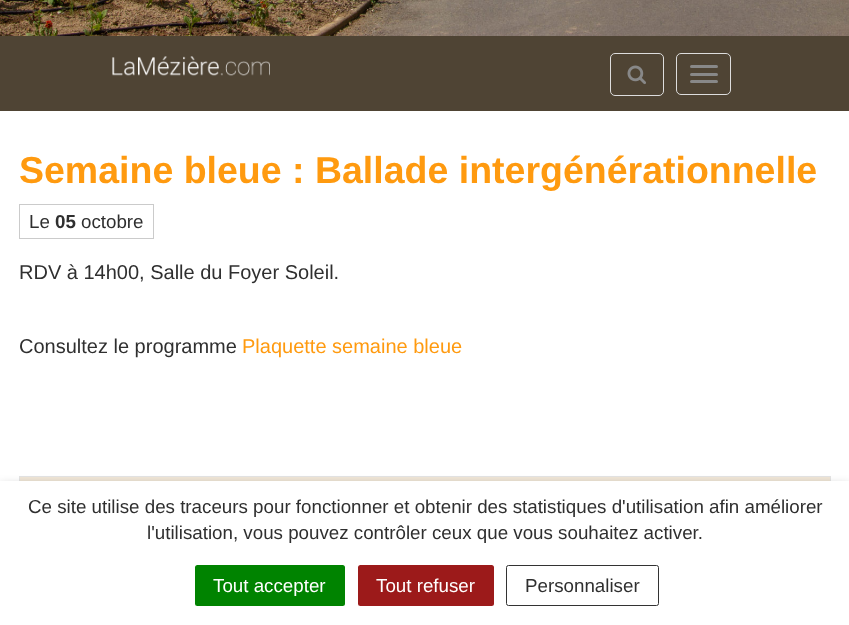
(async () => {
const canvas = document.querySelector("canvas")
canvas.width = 849
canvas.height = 625
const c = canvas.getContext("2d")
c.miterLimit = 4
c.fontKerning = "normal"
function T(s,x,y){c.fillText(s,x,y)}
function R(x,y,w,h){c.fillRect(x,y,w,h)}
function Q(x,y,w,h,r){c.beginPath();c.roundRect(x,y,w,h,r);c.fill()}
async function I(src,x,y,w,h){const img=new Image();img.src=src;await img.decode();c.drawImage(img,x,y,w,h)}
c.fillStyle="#fff"
R(0,0,849,625)
await I("1.png",0,0,849,36)
c.fillStyle="#4f4434"
R(0,36,849,75)
await I("2.png",112,56,158,20)
c.beginPath()
c.roundRect(610.5,53.5,53,42,4.5)
c.strokeStyle="#ddd"
c.stroke()
await I("3.png",627,65,19,20)
c.beginPath()
c.roundRect(676.5,53.5,54,41,4.5)
c.stroke()
c.fillStyle="#888"
Q(690,65,28,3,1.5)
Q(690,73,28,3,1.5)
Q(690,80,28,3,1.5)
c.font="bold 37.5px Liberation Sans"
c.fillStyle="#ff9a0f"
T("Semaine bleue : Ballade intergénérationnelle",19,183)
c.strokeStyle="#cbcbcb"
c.strokeRect(19.5,204.5,134,34)
c.font="18.75px Liberation Sans"
c.fillStyle="#2f2f2f"
T("Le",29,228)
c.font="bold 18.75px Liberation Sans"
T("05",55,228)
c.font="18.75px Liberation Sans"
T("octobre",81,228)
c.font="20px Liberation Sans"
T("RDV à 14h00, Salle du Foyer Soleil.",19,279)
T("Consultez le programme",19,353)
c.fillStyle="#ff9a0f"
T("Plaquette semaine bleue",242,353)
c.fillStyle="#efe5d6"
R(20,477,810,4)
c.strokeStyle="#e3e3e3"
c.strokeRect(19.5,476.5,811,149)
c.fillStyle="#00000080"
c.filter="blur(6px)"
c.beginPath()
c.rect(0,488,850,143)
c.fill()
c.filter="none"
c.fillStyle="#fff"
R(0,481,849,144)
c.font="18.75px Liberation Sans"
c.fillStyle="#2f2f2f"
T("Ce site utilise des traceurs pour fonctionner et obtenir des statistiques d'utilisation afin améliorer",28,513)
T("l'utilisation, vous pouvez contrôler ceux que vous souhaitez activer.",147,539)
c.fillStyle="#008300"
Q(195,565,150,41,2.5)
c.fillStyle="#fff"
T("Tout accepter",213,592)
c.fillStyle="#9c1a1a"
Q(358,565,136,41,2.5)
c.fillStyle="#fff"
T("Tout refuser",376,592)
c.beginPath()
c.roundRect(506.5,565.5,152,40,2)
c.strokeStyle="#333"
c.stroke()
c.fillStyle="#2f2f2f"
T("Personnaliser",525,592)
})()
